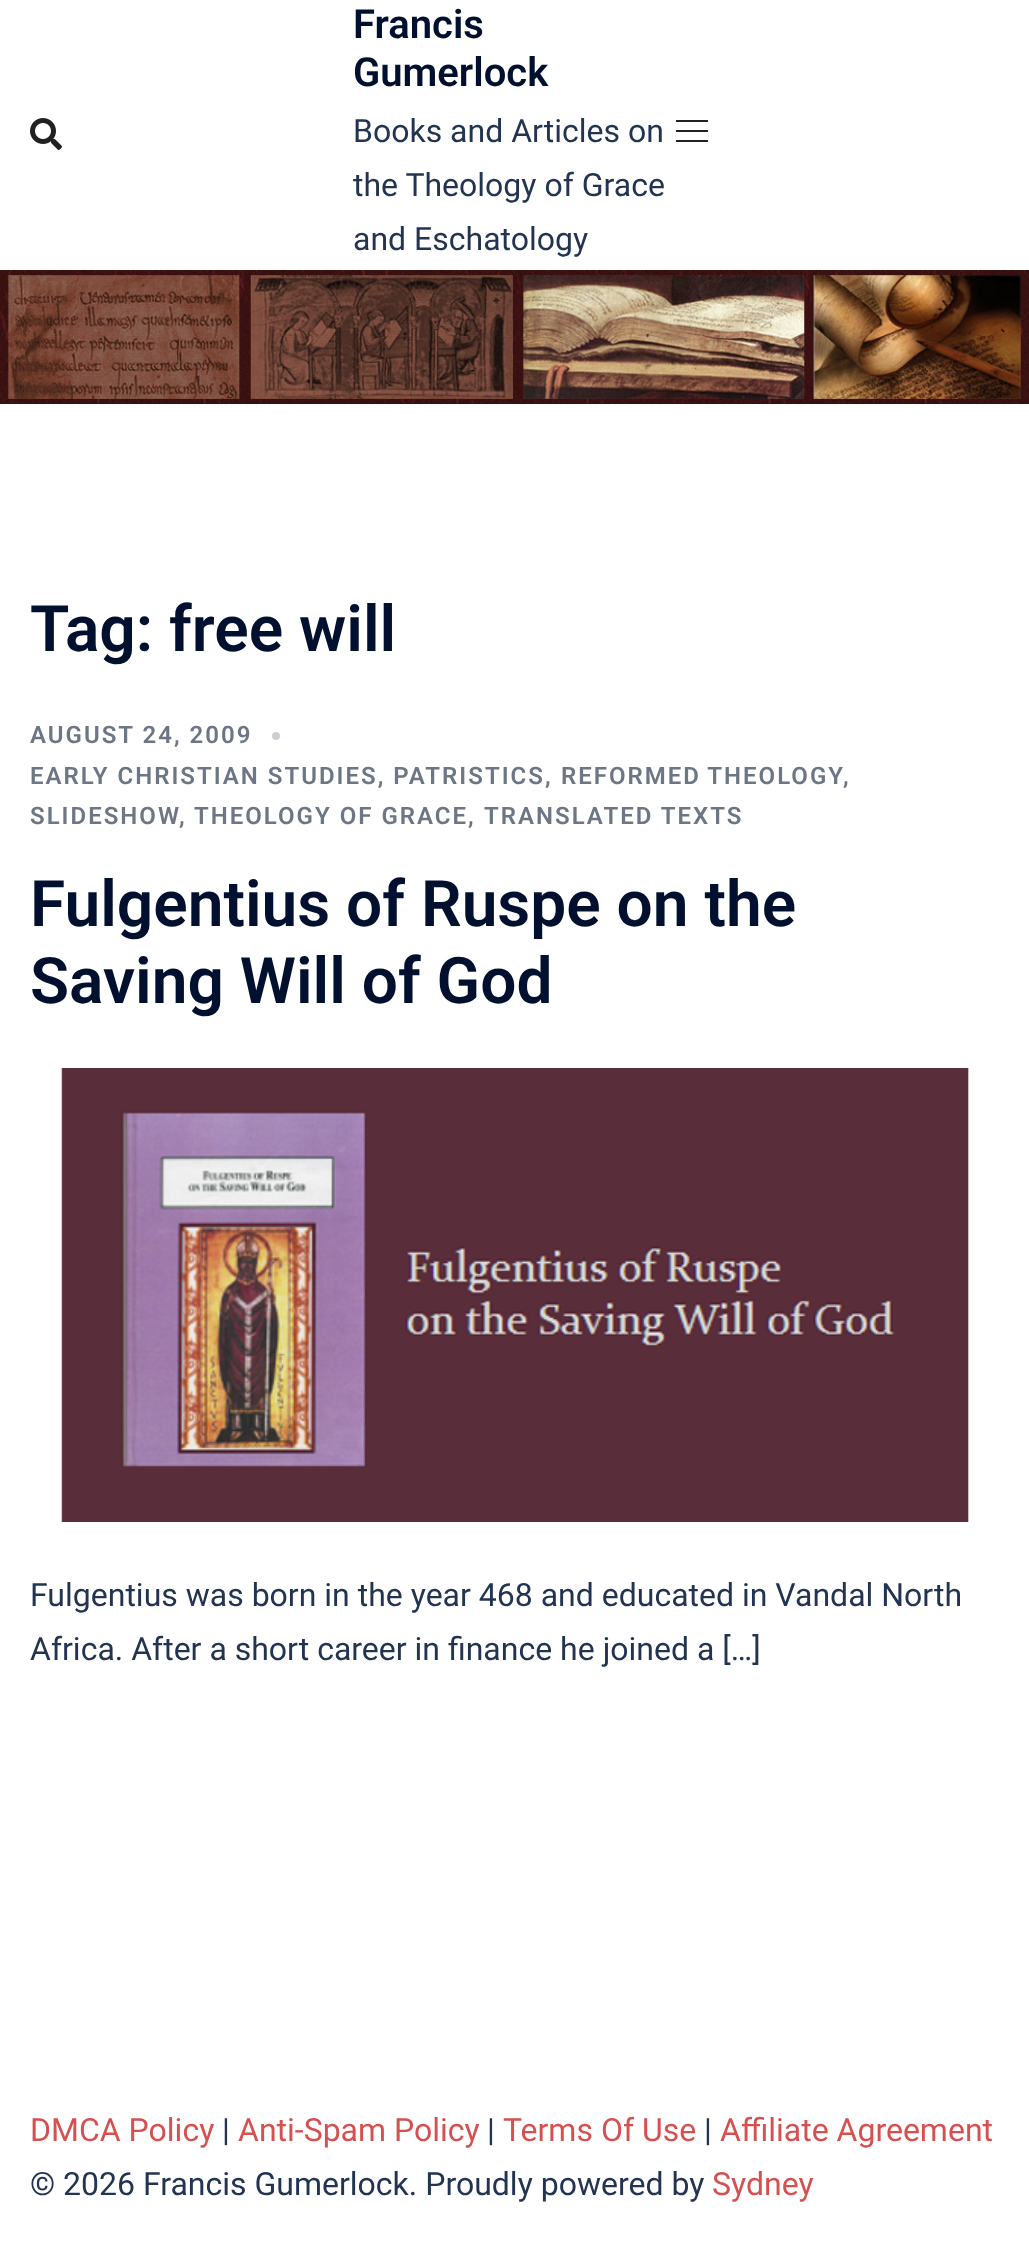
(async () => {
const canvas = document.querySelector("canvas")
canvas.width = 1029
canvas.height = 2257
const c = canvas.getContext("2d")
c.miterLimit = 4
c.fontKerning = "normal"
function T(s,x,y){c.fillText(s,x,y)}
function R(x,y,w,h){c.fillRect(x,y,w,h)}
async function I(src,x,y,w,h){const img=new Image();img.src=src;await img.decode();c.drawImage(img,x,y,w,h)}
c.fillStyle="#fff"
R(0,0,1029,2257)
await I("1.png",30,118,32,32)
c.font="600 40px Roboto"
c.fillStyle="#00102e"
T("Francis",353,38)
T("Gumerlock",353,86)
c.font="32px Roboto"
c.fillStyle="#233452"
T("Books and Articles on",353,142)
T("the Theology of Grace",353,196)
T("and Eschatology",353,250)
c.fillStyle="#212121"
R(676,120,32,2)
R(676,130,32,2)
R(676,140,32,2)
await I("2.png",0,270,1029,134)
c.font="600 64px Roboto"
c.fillStyle="#00102e"
T("Tag: free will",30,651)
c.letterSpacing="2px"
c.font="600 24px Roboto"
c.fillStyle="#6d7685"
T("AUGUST 24, 2009",30,743)
c.fillStyle="#cccfd5"
c.beginPath()
c.arc(276,736,4,0,7)
c.fill()
c.fillStyle="#6d7685"
T("EARLY CHRISTIAN STUDIES, PATRISTICS,",30,784)
c.wordSpacing="-1px"
T("REFORMED THEOLOGY",561,784)
c.wordSpacing="0px"
T(",",843,784)
T("SLIDESHOW",30,824)
T(",",179,824)
T("THEOLOGY OF GRACE,",194,824)
T("TRANSLATED TEXTS",484,824)
c.letterSpacing="0px"
c.font="600 64px Roboto"
c.fillStyle="#00102e"
T("Fulgentius of Ruspe on the",30,926)
T("Saving Will of God",30,1003)
await I("3.png",61,1068,908,454)
c.font="32px Roboto"
c.fillStyle="#233452"
T("Fulgentius was born in the year 468 and educated in Vandal North",30,1606)
T("Africa. After a short career in finance he joined a […]",30,1660)
c.fillStyle="#d65050"
T("DMCA Policy",30,2141)
c.fillStyle="#233452"
T("|",222,2141)
c.fillStyle="#d65050"
T("Anti-Spam Policy",238,2141)
c.fillStyle="#233452"
T("|",487,2141)
c.fillStyle="#d65050"
T("Terms Of Use",503,2141)
c.fillStyle="#233452"
T("|",704,2141)
c.fillStyle="#d65050"
T("Affiliate Agreement",720,2141)
c.fillStyle="#233452"
T("© 2026 Francis Gumerlock. Proudly powered by",30,2195)
c.fillStyle="#d65050"
T("Sydney",712,2195)
})()
